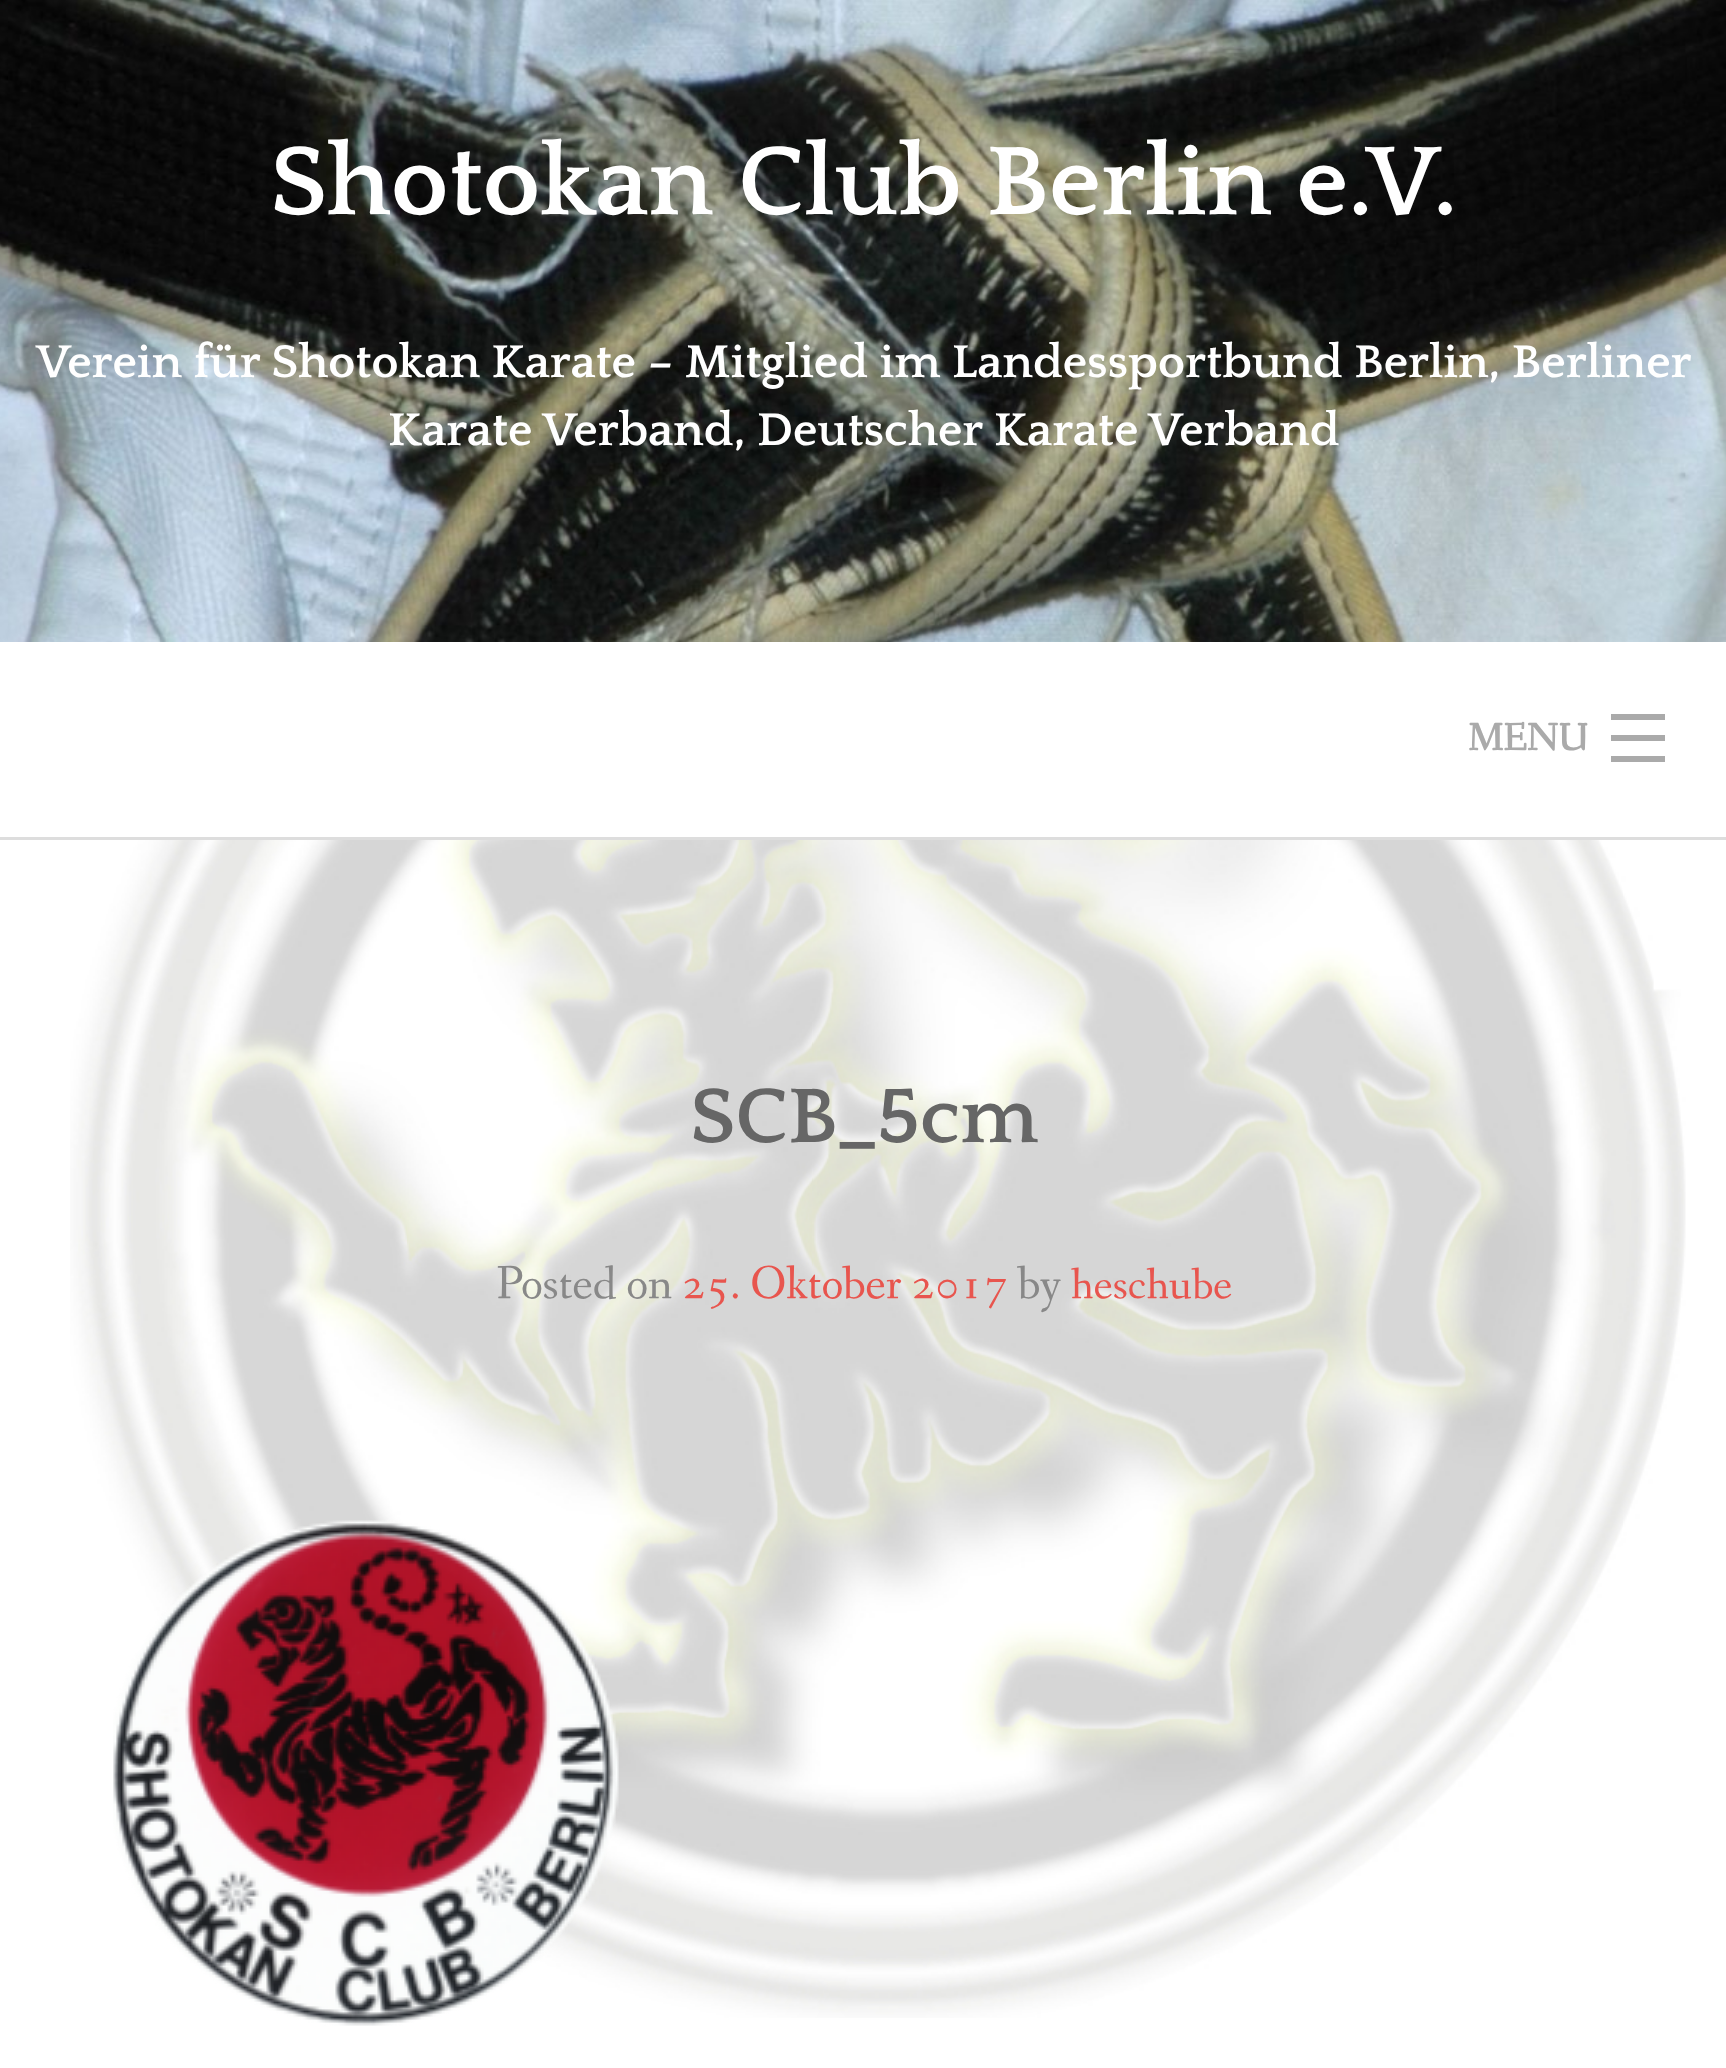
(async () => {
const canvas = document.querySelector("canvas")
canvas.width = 1726
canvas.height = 2068
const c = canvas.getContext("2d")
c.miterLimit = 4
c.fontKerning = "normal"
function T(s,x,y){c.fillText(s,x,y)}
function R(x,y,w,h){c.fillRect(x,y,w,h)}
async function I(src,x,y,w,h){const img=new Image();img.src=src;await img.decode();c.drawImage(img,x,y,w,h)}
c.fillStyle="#fff"
R(0,0,1726,2068)
await I("1.png",70,840,1616,1178)
await I("2.png",0,0,1726,642)
c.font="bold 102px Quattrocento"
T("Shotokan Club Berlin e.V.",270,214)
c.font="bold 48px Quattrocento"
T("Verein für Shotokan Karate – Mitglied im Landessportbund Berlin, Berliner",36,377)
T("Karate Verband, Deutscher Karate Verband",388,445)
c.font="bold 39px Fanwood Text"
c.fillStyle="#aaa"
T("MENU",1468,750)
R(1611,756,54,6)
R(1611,735,54,6)
R(1611,714,54,6)
c.fillStyle="#ddd"
R(0,837,1726,3)
c.font="bold 81px Quattrocento"
c.fillStyle="#666"
T("SCB_5cm",690,1142)
c.font="48px Fanwood Text"
c.fillStyle="#888"
T("Posted on",496,1298)
c.fillStyle="#e8554e"
T("25. Oktober 2017",682,1298)
c.fillStyle="#888"
T("by",1017,1298)
c.font="45px Fanwood Text"
c.fillStyle="#e8554e"
T("heschube",1071,1298)
await I("3.png",113,1520,506,506)
})()
